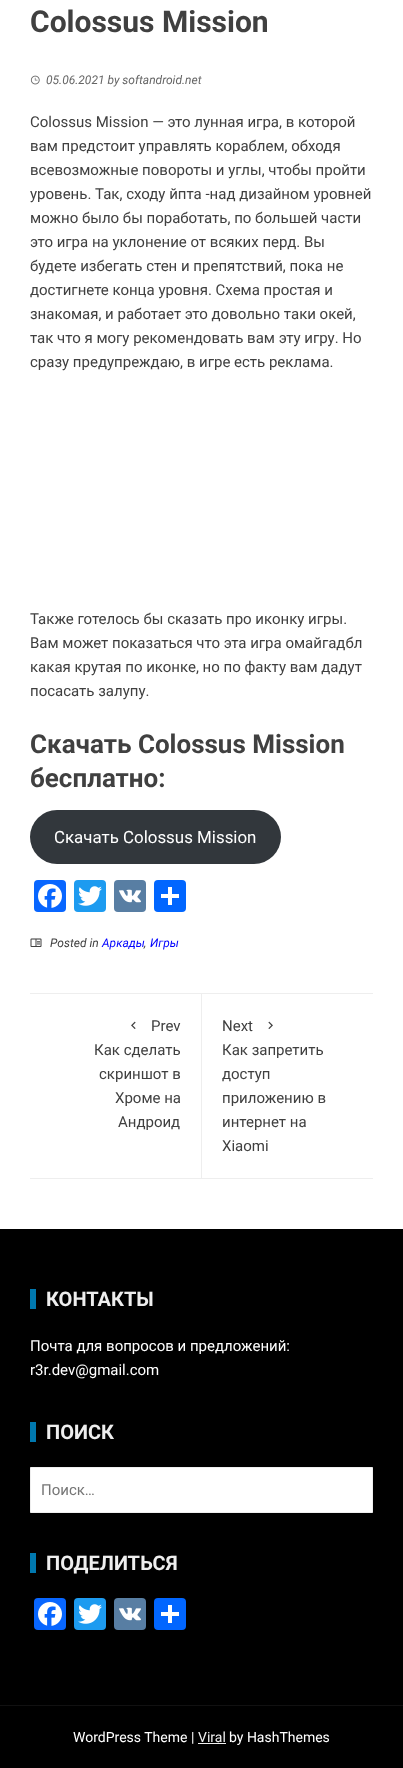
(async () => {
const canvas = document.querySelector("canvas")
canvas.width = 403
canvas.height = 1768
const c = canvas.getContext("2d")
c.miterLimit = 4
c.fontKerning = "normal"
function T(s,x,y){c.fillText(s,x,y)}
function R(x,y,w,h){c.fillRect(x,y,w,h)}
function Q(x,y,w,h,r){c.beginPath();c.roundRect(x,y,w,h,r);c.fill()}
async function I(src,x,y,w,h){const img=new Image();img.src=src;await img.decode();c.drawImage(img,x,y,w,h)}
c.fillStyle="#fff"
R(0,0,403,1768)
c.font="bold 30px Roboto"
c.fillStyle="#404040"
T("Colossus Mission",30,32)
await I("1.png",30,75,10,10)
c.font="italic 12px Roboto"
c.fillStyle="#666"
T("05.06.2021 by softandroid.net",46,84)
c.font="15px Roboto"
c.fillStyle="#404040"
T("Colossus Mission — это лунная игра, в которой",30,127)
T("вам предстоит управлять кораблем, обходя",30,151)
T("всевозможные повороты и углы, чтобы пройти",30,175)
T("уровень. Так, сходу йпта -над дизайном уровней",30,199)
T("можно было бы поработать, по большей части",30,223)
T("это игра на уклонение от всяких перд. Вы",30,247)
T("будете избегать стен и препятствий, пока не",30,271)
T("достигнете конца уровня. Схема простая и",30,295)
T("знакомая, и работает это довольно таки окей,",30,319)
T("так что я могу рекомендовать вам эту игру. Но",30,343)
T("сразу предупреждаю, в игре есть реклама.",30,367)
T("Также готелось бы сказать про иконку игры.",30,624)
T("Вам может показаться что эта игра омайгадбл",30,648)
T("какая крутая по иконке, но по факту вам дадут",30,672)
T("посасать залупу.",30,696)
c.font="bold 26px Roboto"
T("Скачать Colossus Mission",30,753)
T("бесплатно:",30,787)
c.fillStyle="#32373c"
Q(30,810,251,54,27)
c.font="16.9px Roboto"
c.fillStyle="#fff"
T("Скачать Colossus Mission",54,843)
c.fillStyle="#0866ff"
Q(34,880,32,32,4)
await I("2.png",38,884,24,24)
c.fillStyle="#1d9bf0"
Q(74,880,32,32,4)
await I("3.png",78,886,24,20)
c.fillStyle="#587ea3"
Q(114,880,32,32,4)
await I("4.png",119,889,22,14)
c.fillStyle="#0166ff"
Q(154,880,32,32,4)
c.fillStyle="#fff"
R(168,887,4,18)
R(161,894,18,4)
await I("5.png",30,938,12,9)
c.font="italic 12px Roboto"
c.fillStyle="#404040"
T("Posted in",50,947)
c.fillStyle="#00f"
T("Аркады",102,947)
c.fillStyle="#404040"
T(",",144,947)
c.fillStyle="#00f"
T("Игры",150,947)
c.fillStyle="#eee"
R(30,993,343,1)
R(30,1178,343,1)
R(201,994,1,184)
await I("6.png",131,1021,5,8)
c.font="15px Roboto"
c.fillStyle="#404040"
T("Prev",151,1031)
T("Как сделать",94,1055)
T("скриншот в",99,1079)
T("Хроме на",115,1103)
T("Андроид",118,1127)
T("Next",222,1031)
await I("7.png",268,1021,5,8)
T("Как запретить",222,1055)
T("доступ",222,1079)
T("приложению в",222,1103)
T("интернет на",222,1127)
T("Xiaomi",222,1151)
c.fillStyle="#000"
R(0,1229,403,539)
c.fillStyle="#0078af"
R(30,1289,6,20)
c.font="bold 20px Roboto"
c.fillStyle="#eee"
T("КОНТАКТЫ",46,1306)
c.font="15px Roboto"
c.fillStyle="#fff"
T("Почта для вопросов и предложений:",30,1351)
T("r3r.dev@gmail.com",30,1375)
c.fillStyle="#0078af"
R(30,1422,6,20)
c.font="bold 20px Roboto"
c.fillStyle="#eee"
T("ПОИСК",46,1439)
c.fillStyle="#fff"
c.beginPath()
c.rect(30.5,1467.5,342,45)
c.fill()
c.strokeStyle="#eee"
c.stroke()
c.font="15px Roboto"
c.fillStyle="#757575"
T("Поиск…",41,1495)
c.fillStyle="#0078af"
R(30,1553,6,20)
c.font="bold 20px Roboto"
c.fillStyle="#eee"
T("ПОДЕЛИТЬСЯ",46,1570)
c.fillStyle="#0866ff"
Q(34,1598,32,32,4)
await I("2.png",38,1602,24,24)
c.fillStyle="#1d9bf0"
Q(74,1598,32,32,4)
await I("3.png",78,1604,24,20)
c.fillStyle="#587ea3"
Q(114,1598,32,32,4)
await I("4.png",119,1607,22,14)
c.fillStyle="#0166ff"
Q(154,1598,32,32,4)
c.fillStyle="#fff"
R(168,1605,4,18)
R(161,1612,18,4)
c.fillStyle="#111"
R(0,1705,403,1)
c.font="14px Roboto"
c.fillStyle="#fff"
T("WordPress Theme |",73,1742)
c.fillStyle="#eee"
T("Viral",198,1742)
c.fillStyle="#f0f0f0"
R(198,1743,28,1)
c.fillStyle="#fff"
T("by HashThemes",229,1742)
})()
